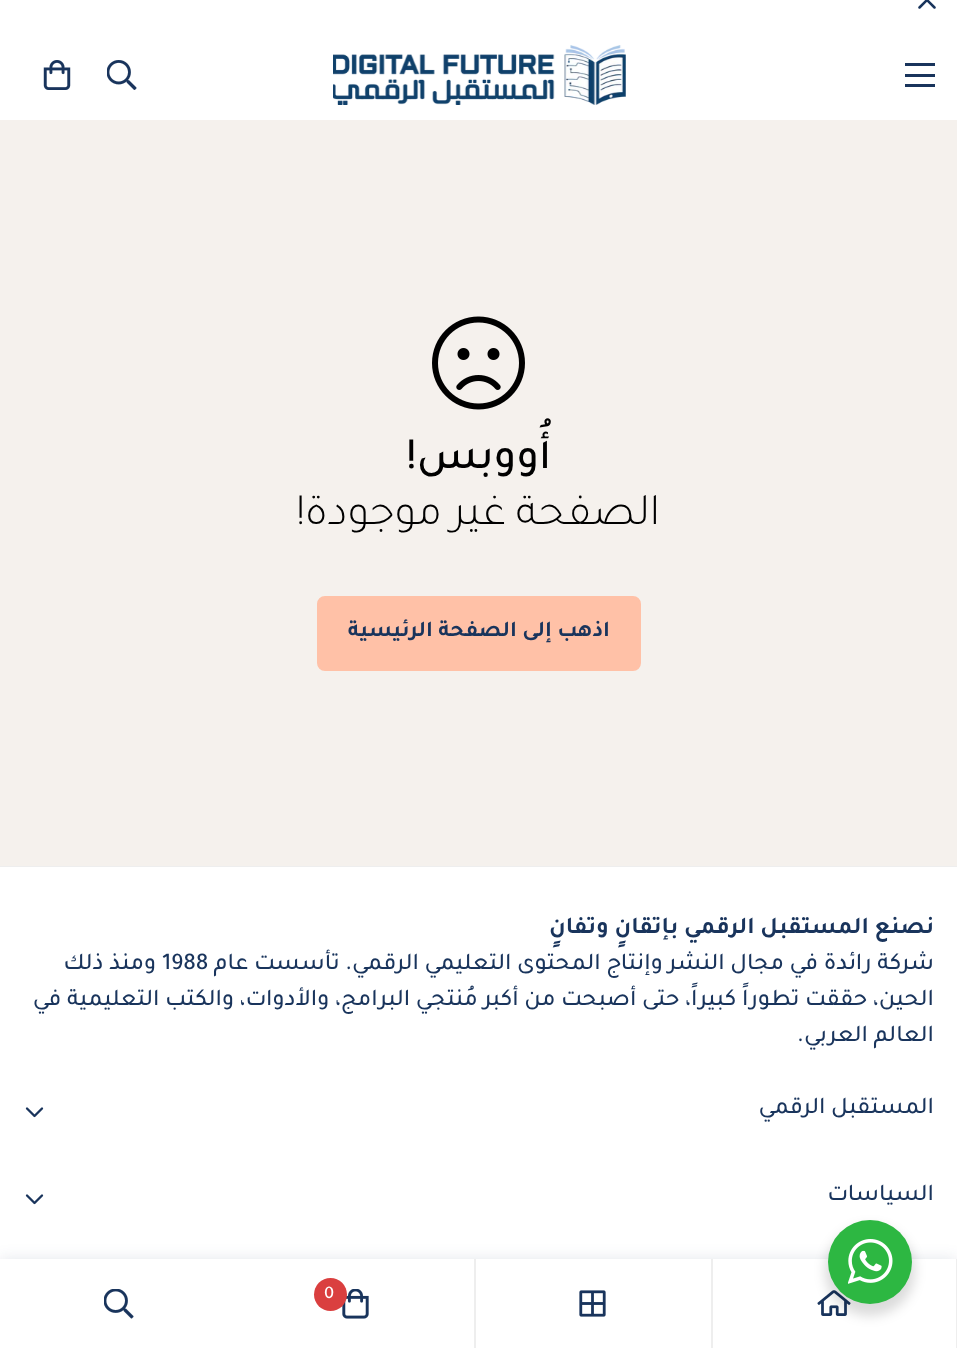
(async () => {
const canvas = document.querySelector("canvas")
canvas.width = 957
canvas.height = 1348
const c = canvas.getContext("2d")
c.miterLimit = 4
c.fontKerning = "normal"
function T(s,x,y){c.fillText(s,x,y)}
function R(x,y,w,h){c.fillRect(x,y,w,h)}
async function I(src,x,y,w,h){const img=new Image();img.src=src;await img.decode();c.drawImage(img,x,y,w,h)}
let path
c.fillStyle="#fff"
R(0,0,957,1348)
path = new Path2D("M919.5 7.5l15-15m-15 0l15 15")
c.strokeStyle="#19345c"
c.lineWidth=2.5
c.lineCap="round"
c.lineJoin="round"
c.stroke(path)
c.fillStyle="#19345c"
R(905,74,30,3)
R(905,63,30,3)
R(905,84,30,3)
await I("1.png",333,45,293,60)
await I("2.png",107,60,30,30)
await I("3.png",43,60,28,30)
c.fillStyle="#f5f1ed"
R(0,120,957,746)
await I("4.png",432,316,93,94)
c.direction="rtl"
c.font="500 45px Tajawal"
c.fillStyle="#000"
T("أُووبس!",551,468)
c.font="300 45px Tajawal"
T("الصفحة غير موجودة!",660,524)
c.fillStyle="#ffc1a7"
c.beginPath()
c.roundRect(318,597,322,73,7)
c.fill()
c.strokeStyle="#ffc1a7"
c.lineWidth=2
c.lineJoin="miter"
c.stroke()
c.font="bold 22.5px Tajawal"
c.fillStyle="#19345c"
T("اذهب إلى الصفحة الرئيسية",610,636)
c.fillStyle="#eee"
R(0,866,957,1)
c.font="bold 24px Tajawal"
c.fillStyle="#19345c"
T("نصنع المستقبل الرقمي بإتقانٍ وتفانٍ",934,933)
c.font="500 24px Tajawal"
T("شركة رائدة في مجال النشر وإنتاج المحتوى التعليمي الرقمي. تأسست عام",934,969)
c.direction="ltr"
T("1988",162,969)
c.direction="rtl"
T("ومنذ ذلك",156,969)
T("الحين، حققت تطوراً كبيراً، حتى أصبحت من أكبر مُنتجي البرامج، والأدوات، والكتب التعليمية في",934,1005)
T("العالم العربي.",934,1041)
T("المستقبل الرقمي",934,1113)
await I("5.png",25,1107,19,11)
T("السياسات",934,1200)
await I("5.png",25,1194,19,11)
c.fillStyle="#19345c1f"
c.filter="blur(7.5px)"
c.beginPath()
c.rect(0,1259,957,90)
c.fill()
c.filter="none"
c.fillStyle="#fff"
R(0,1259,956,89)
await I("7.png",817,1290,34,26)
c.fillStyle="#00000024"
c.filter="blur(6px)"
c.beginPath()
c.roundRect(825,1226,90,90,45)
c.fill()
c.filter="none"
c.fillStyle="#2db742"
c.beginPath()
c.arc(870,1262,42,0,7)
c.fill()
await I("6.png",848,1239,45,45)
c.fillStyle="#eee"
R(956,1259,1,89)
R(711,1259,2,89)
await I("8.png",579,1290,27,27)
R(474,1259,2,89)
await I("9.png",342,1289,27,30)
c.fillStyle="#da3f3f"
c.beginPath()
c.arc(330.5,1294.5,16.5,0,7)
c.fill()
c.direction="ltr"
c.font="500 18px Tajawal"
c.fillStyle="#fff"
T("0",324,1298)
await I("10.png",104,1289,30,30)
})()
